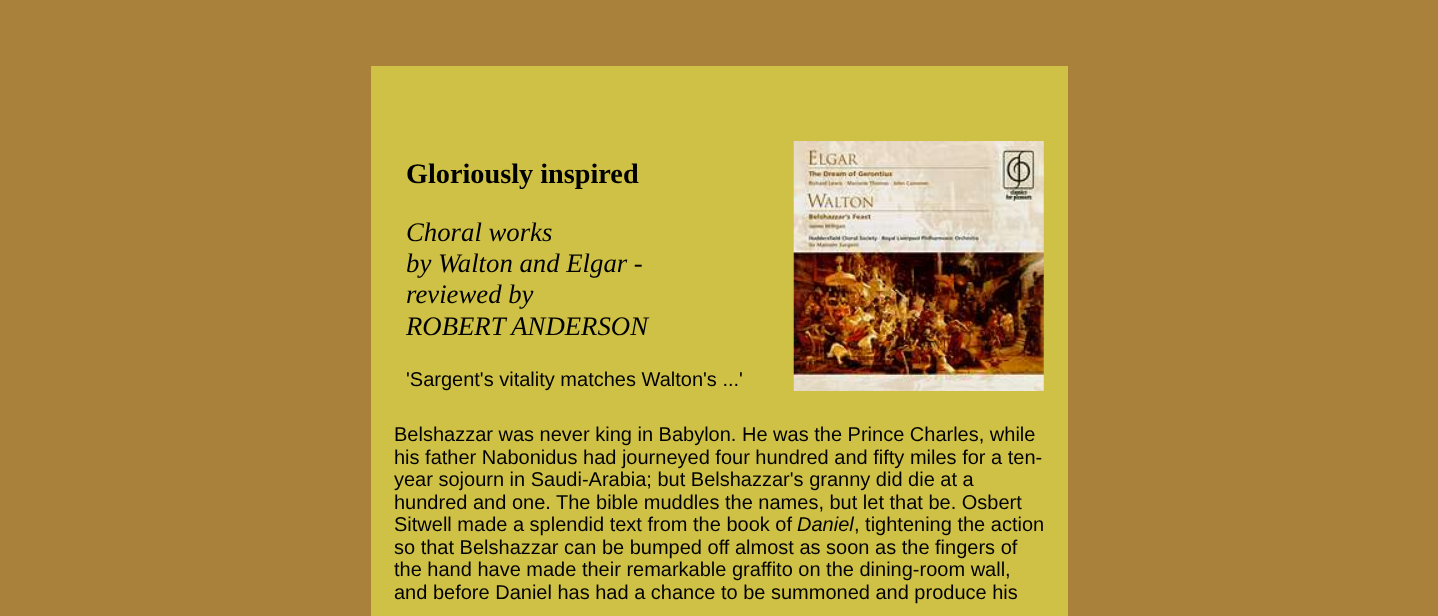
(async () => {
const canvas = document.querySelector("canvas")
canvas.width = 1438
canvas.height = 616
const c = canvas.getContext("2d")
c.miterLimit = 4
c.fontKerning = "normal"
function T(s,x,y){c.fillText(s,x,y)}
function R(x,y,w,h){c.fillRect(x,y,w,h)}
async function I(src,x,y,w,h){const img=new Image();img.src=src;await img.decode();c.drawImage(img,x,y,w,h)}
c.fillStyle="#a9813b"
R(0,0,1438,616)
c.fillStyle="#cfc146"
R(371,66,697,550)
c.font="bold 28.25px Liberation Serif"
c.fillStyle="#000"
T("Gloriously inspired",406,183)
c.font="italic 26.75px Liberation Serif"
T("Choral works",406,241)
T("by Walton and Elgar -",406,272)
T("reviewed by",406,303)
T("ROBERT ANDERSON",406,335)
c.font="20px Liberation Sans"
T("'Sargent's vitality matches Walton's ...'",406,386)
await I("1.png",793,141,251,250)
T("Belshazzar was never king in Babylon. He was the Prince Charles, while",394,441)
T("his father Nabonidus had journeyed four hundred and fifty miles for a ten-",394,464)
T("year sojourn in Saudi-Arabia; but Belshazzar's granny did die at a",394,486)
T("hundred and one. The bible muddles the names, but let that be. Osbert",394,509)
T("Sitwell made a splendid text from the book of",394,531)
c.font="italic 20px Liberation Sans"
T("Daniel",797,531)
c.font="20px Liberation Sans"
T(", tightening the action",854,531)
T("so that Belshazzar can be bumped off almost as soon as the fingers of",394,554)
T("the hand have made their remarkable graffito on the dining-room wall,",394,576)
T("and before Daniel has had a chance to be summoned and produce his",394,599)
})()
